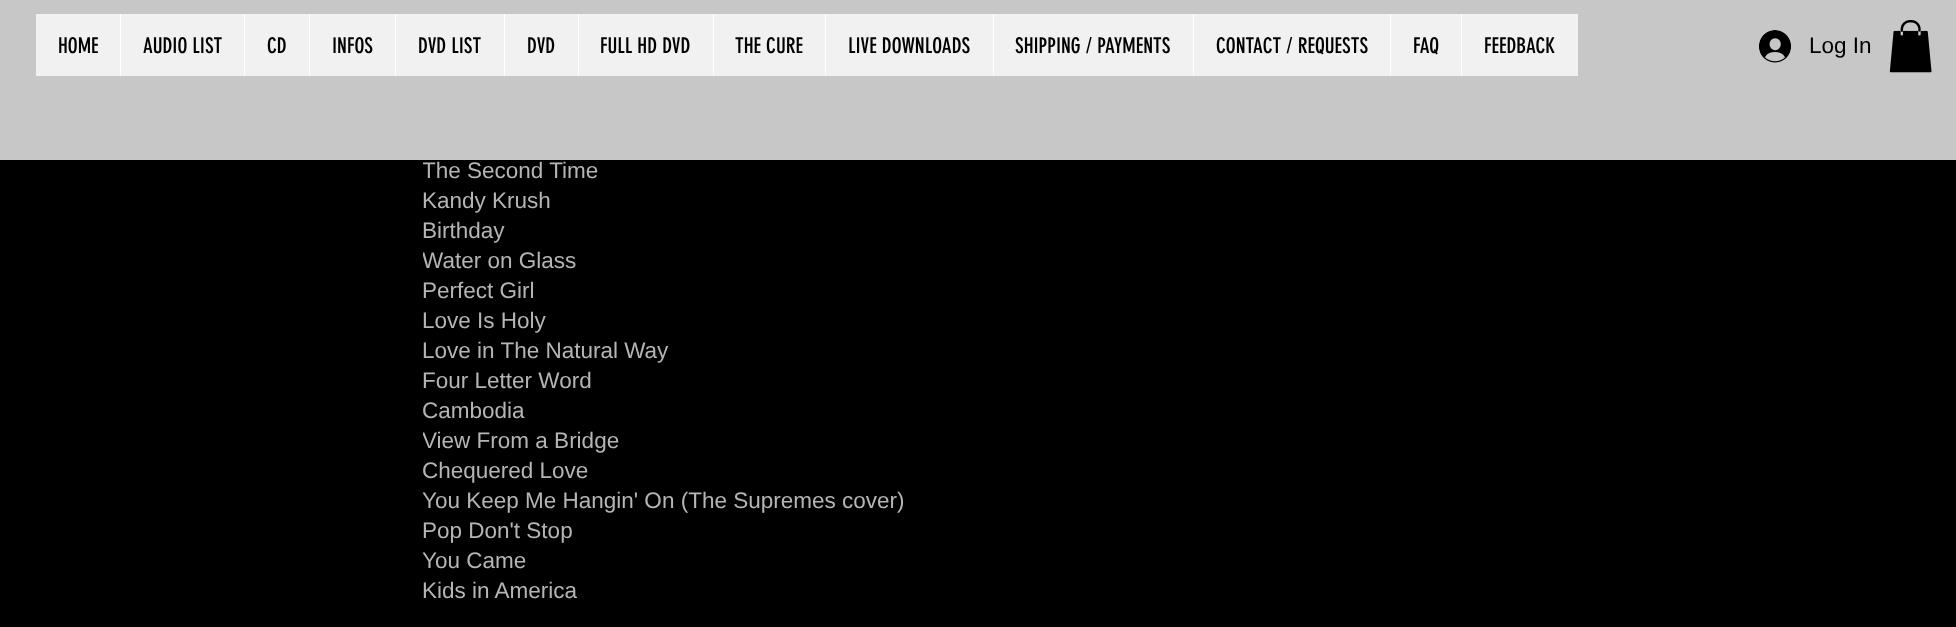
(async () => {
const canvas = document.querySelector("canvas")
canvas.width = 1956
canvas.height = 627
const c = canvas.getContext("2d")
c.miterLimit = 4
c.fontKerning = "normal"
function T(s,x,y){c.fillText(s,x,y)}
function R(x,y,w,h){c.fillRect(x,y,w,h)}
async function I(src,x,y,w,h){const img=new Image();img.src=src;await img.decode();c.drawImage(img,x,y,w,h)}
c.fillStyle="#000"
R(0,0,1956,627)
c.fillStyle="#000000b3"
c.filter="blur(3px)"
c.beginPath()
c.rect(0,0,1956,160)
c.fill()
c.filter="none"
c.fillStyle="#c7c7c7"
R(0,0,1956,160)
c.fillStyle="#f1f1f1"
R(36,14,1542,62)
c.font="21.25px 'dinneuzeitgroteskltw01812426'"
c.fillStyle="#000"
T("HOME",58,53)
c.fillStyle="#fff"
R(120,14,1,62)
c.fillStyle="#000"
T("AUDIO LIST",143,53)
c.fillStyle="#fff"
R(244,14,1,62)
c.fillStyle="#000"
T("CD",267,53)
c.fillStyle="#fff"
R(309,14,1,62)
c.fillStyle="#000"
T("INFOS",332,53)
c.fillStyle="#fff"
R(395,14,1,62)
c.fillStyle="#000"
T("DVD LIST",418,53)
c.fillStyle="#fff"
R(504,14,1,62)
c.fillStyle="#000"
T("DVD",527,53)
c.fillStyle="#fff"
R(578,14,1,62)
c.fillStyle="#000"
T("FULL HD DVD",600,53)
c.fillStyle="#fff"
R(713,14,1,62)
c.fillStyle="#000"
T("THE CURE",735,53)
c.fillStyle="#fff"
R(825,14,1,62)
c.fillStyle="#000"
T("LIVE DOWNLOADS",848,53)
c.fillStyle="#fff"
R(993,14,1,62)
c.fillStyle="#000"
T("SHIPPING / PAYMENTS",1015,53)
c.fillStyle="#fff"
R(1193,14,1,62)
c.fillStyle="#000"
T("CONTACT / REQUESTS",1216,53)
c.fillStyle="#fff"
R(1390,14,1,62)
c.fillStyle="#000"
T("FAQ",1413,53)
c.fillStyle="#fff"
R(1461,14,1,62)
c.fillStyle="#000"
T("FEEDBACK",1484,53)
await I("1.png",1759,30,32,33)
c.font="22.5px Liberation Sans"
T("Log In",1809,53)
await I("2.png",1889,20,43,53)
c.save()
c.beginPath()
c.rect(423,0,590,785)
c.clip()
c.fillStyle="#b5b5b5"
T("The Second Time",422,178)
c.restore()
c.fillStyle="#b5b5b5"
T("Kandy Krush",422,208)
T("Birthday",422,238)
c.save()
c.beginPath()
c.rect(423,0,590,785)
c.clip()
T("Water on Glass",422,268)
c.restore()
T("Perfect Girl",422,298)
T("Love Is Holy",422,328)
T("Love in The Natural Way",422,358)
T("Four Letter Word",422,388)
T("Cambodia",422,418)
c.save()
c.beginPath()
c.rect(423,0,590,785)
c.clip()
T("View From a Bridge",422,448)
c.restore()
T("Chequered Love",422,478)
T("You Keep Me Hangin' On (The Supremes cover)",422,508)
T("Pop Don't Stop",422,538)
T("You Came",422,568)
T("Kids in America",422,598)
})()
